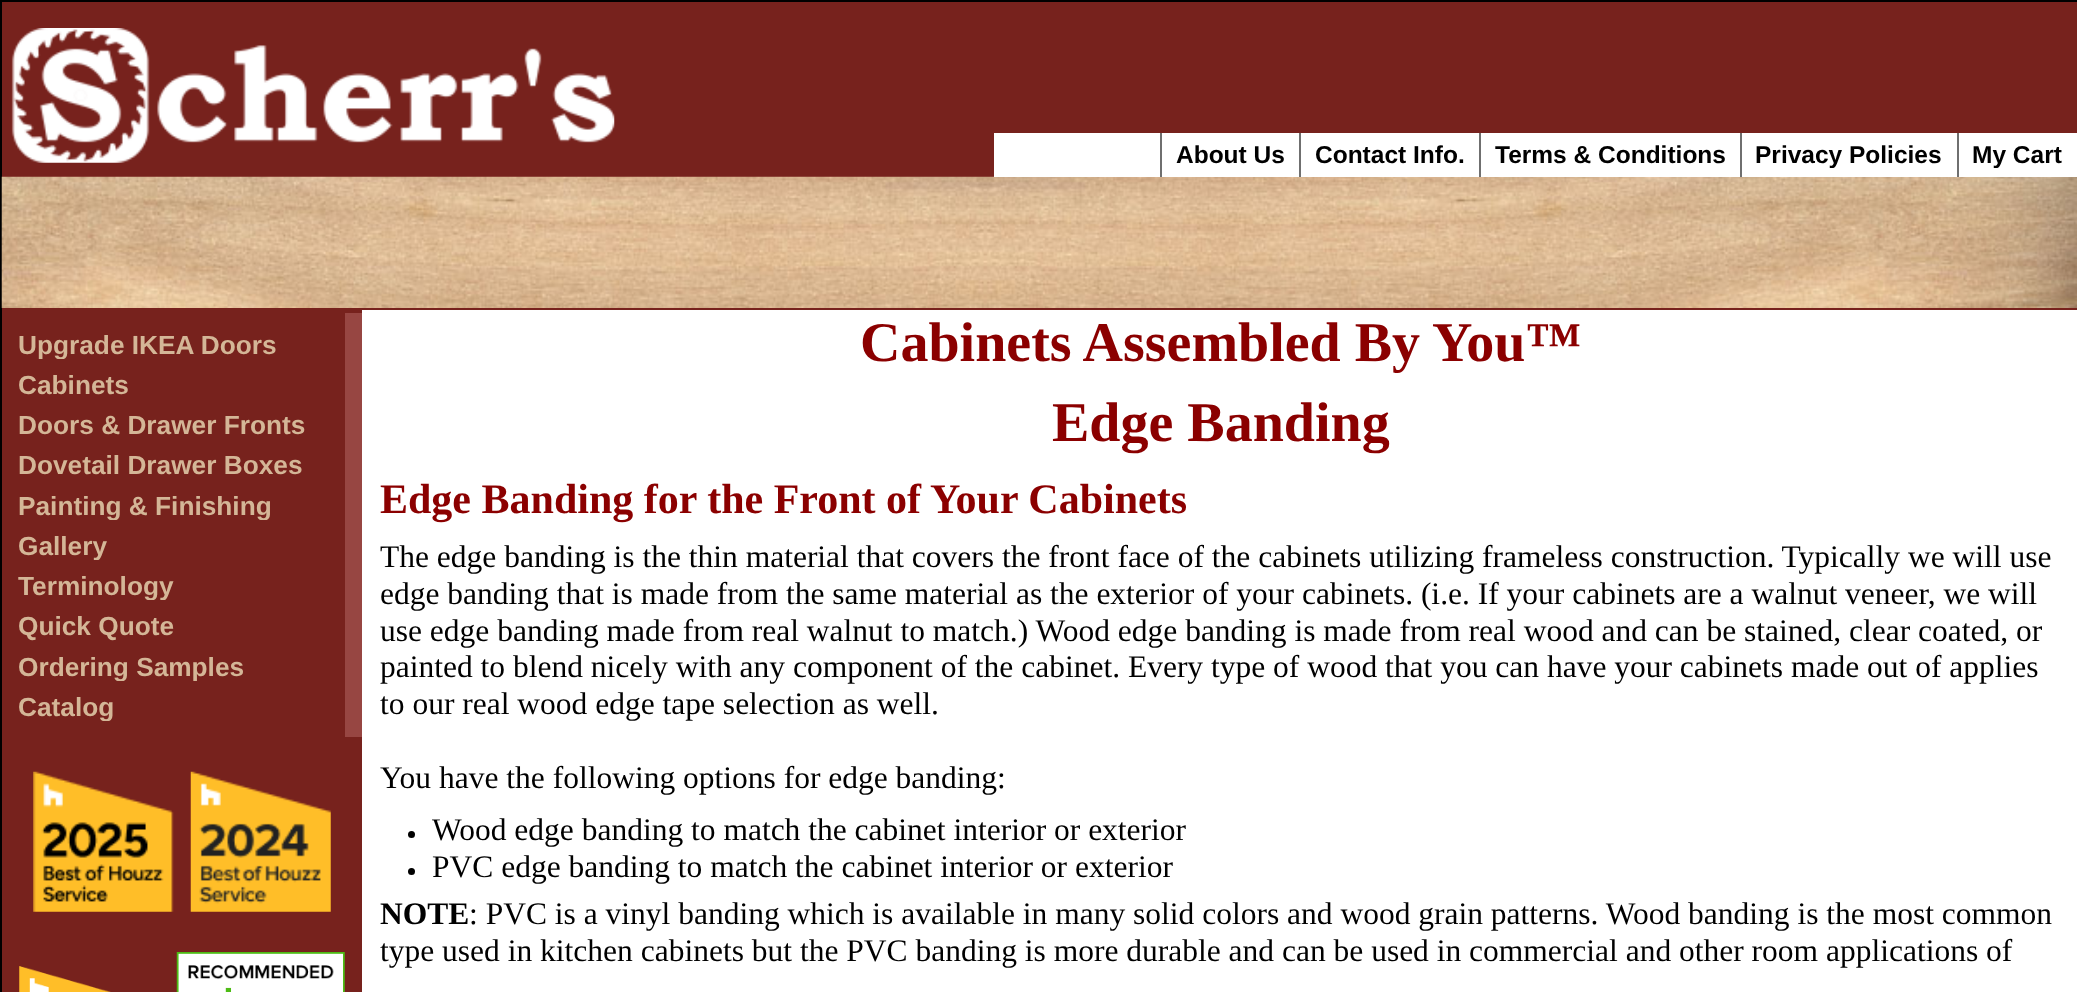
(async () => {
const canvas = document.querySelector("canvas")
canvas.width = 2077
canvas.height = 992
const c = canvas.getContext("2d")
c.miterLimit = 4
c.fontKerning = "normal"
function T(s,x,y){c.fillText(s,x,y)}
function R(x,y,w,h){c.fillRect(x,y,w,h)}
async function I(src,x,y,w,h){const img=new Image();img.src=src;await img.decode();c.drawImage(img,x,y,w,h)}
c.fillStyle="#fff"
R(0,0,2077,992)
c.strokeStyle="#000"
c.lineWidth=2
c.strokeRect(1,1,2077,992)
c.fillStyle="#77221d"
R(2,2,2075,308)
await I("1.png",11,28,604,135)
await I("2.png",1,176,2076,132)
c.fillStyle="#fff"
R(994,133,1083,44)
c.fillStyle="#6f6f6f"
R(1160,133,2,44)
c.font="bold 24.5px Liberation Sans"
c.fillStyle="#000"
T("About Us",1176,163)
c.fillStyle="#6f6f6f"
R(1299,133,2,44)
c.fillStyle="#000"
T("Contact Info.",1315,163)
c.fillStyle="#6f6f6f"
R(1479,133,2,44)
c.fillStyle="#000"
T("Terms & Conditions",1495,163)
c.fillStyle="#6f6f6f"
R(1740,133,2,44)
c.fillStyle="#000"
T("Privacy Policies",1755,163)
c.fillStyle="#6f6f6f"
R(1957,133,2,44)
c.fillStyle="#000"
T("My Cart",1972,163)
c.fillStyle="#77221d"
R(2,310,360,682)
c.fillStyle="#974642"
R(345,313,17,424)
c.save()
c.beginPath()
c.rect(18,329,311,30)
c.clip()
c.font="bold 26.25px Liberation Sans"
c.fillStyle="#d4b697"
T("Upgrade IKEA Doors",18,354)
c.restore()
c.font="bold 26.25px Liberation Sans"
c.fillStyle="#d4b697"
T("Cabinets",18,394)
T("Doors & Drawer Fronts",18,434)
T("Dovetail Drawer Boxes",18,474)
c.save()
c.beginPath()
c.rect(18,490,311,30)
c.clip()
T("Painting & Finishing",18,515)
c.restore()
c.save()
c.beginPath()
c.rect(18,530,311,30)
c.clip()
T("Gallery",18,555)
c.restore()
c.save()
c.beginPath()
c.rect(18,571,311,29)
c.clip()
T("Terminology",18,595)
c.restore()
T("Quick Quote",18,635)
c.save()
c.beginPath()
c.rect(18,651,311,30)
c.clip()
T("Ordering Samples",18,676)
c.restore()
c.save()
c.beginPath()
c.rect(18,691,311,30)
c.clip()
T("Catalog",18,716)
c.restore()
await I("3.png",33,771,141,141)
await I("4.png",190,771,141,141)
await I("5.png",19,966,92,26)
await I("6.png",176,952,169,40)
c.font="bold 56px Liberation Serif"
c.fillStyle="#8b0000"
T("Cabinets Assembled By You™",860,361)
T("Edge Banding",1052,441)
c.font="bold 42px Liberation Serif"
T("Edge Banding for the Front of Your Cabinets",380,513)
c.font="31.5px Liberation Serif"
c.fillStyle="#000"
T("The edge banding is the thin material that covers the front face of the cabinets utilizing frameless construction. Typically we will use",380,567)
T("edge banding that is made from the same material as the exterior of your cabinets. (i.e. If your cabinets are a walnut veneer, we will",380,604)
T("use edge banding made from real walnut to match.) Wood edge banding is made from real wood and can be stained, clear coated, or",380,641)
T("painted to blend nicely with any component of the cabinet. Every type of wood that you can have your cabinets made out of applies",380,677)
T("to our real wood edge tape selection as well.",380,714)
T("You have the following options for edge banding:",380,788)
c.beginPath()
c.arc(411.5,834.5,3.5,0,7)
c.fill()
T("Wood edge banding to match the cabinet interior or exterior",432,840)
c.beginPath()
c.arc(411.5,871.5,3.5,0,7)
c.fill()
T("PVC edge banding to match the cabinet interior or exterior",432,877)
c.font="bold 31.5px Liberation Serif"
T("NOTE",380,924)
c.font="31.5px Liberation Serif"
T(": PVC is a vinyl banding which is available in many solid colors and wood grain patterns. Wood banding is the most common",469,924)
T("type used in kitchen cabinets but the PVC banding is more durable and can be used in commercial and other room applications of",380,961)
})()
